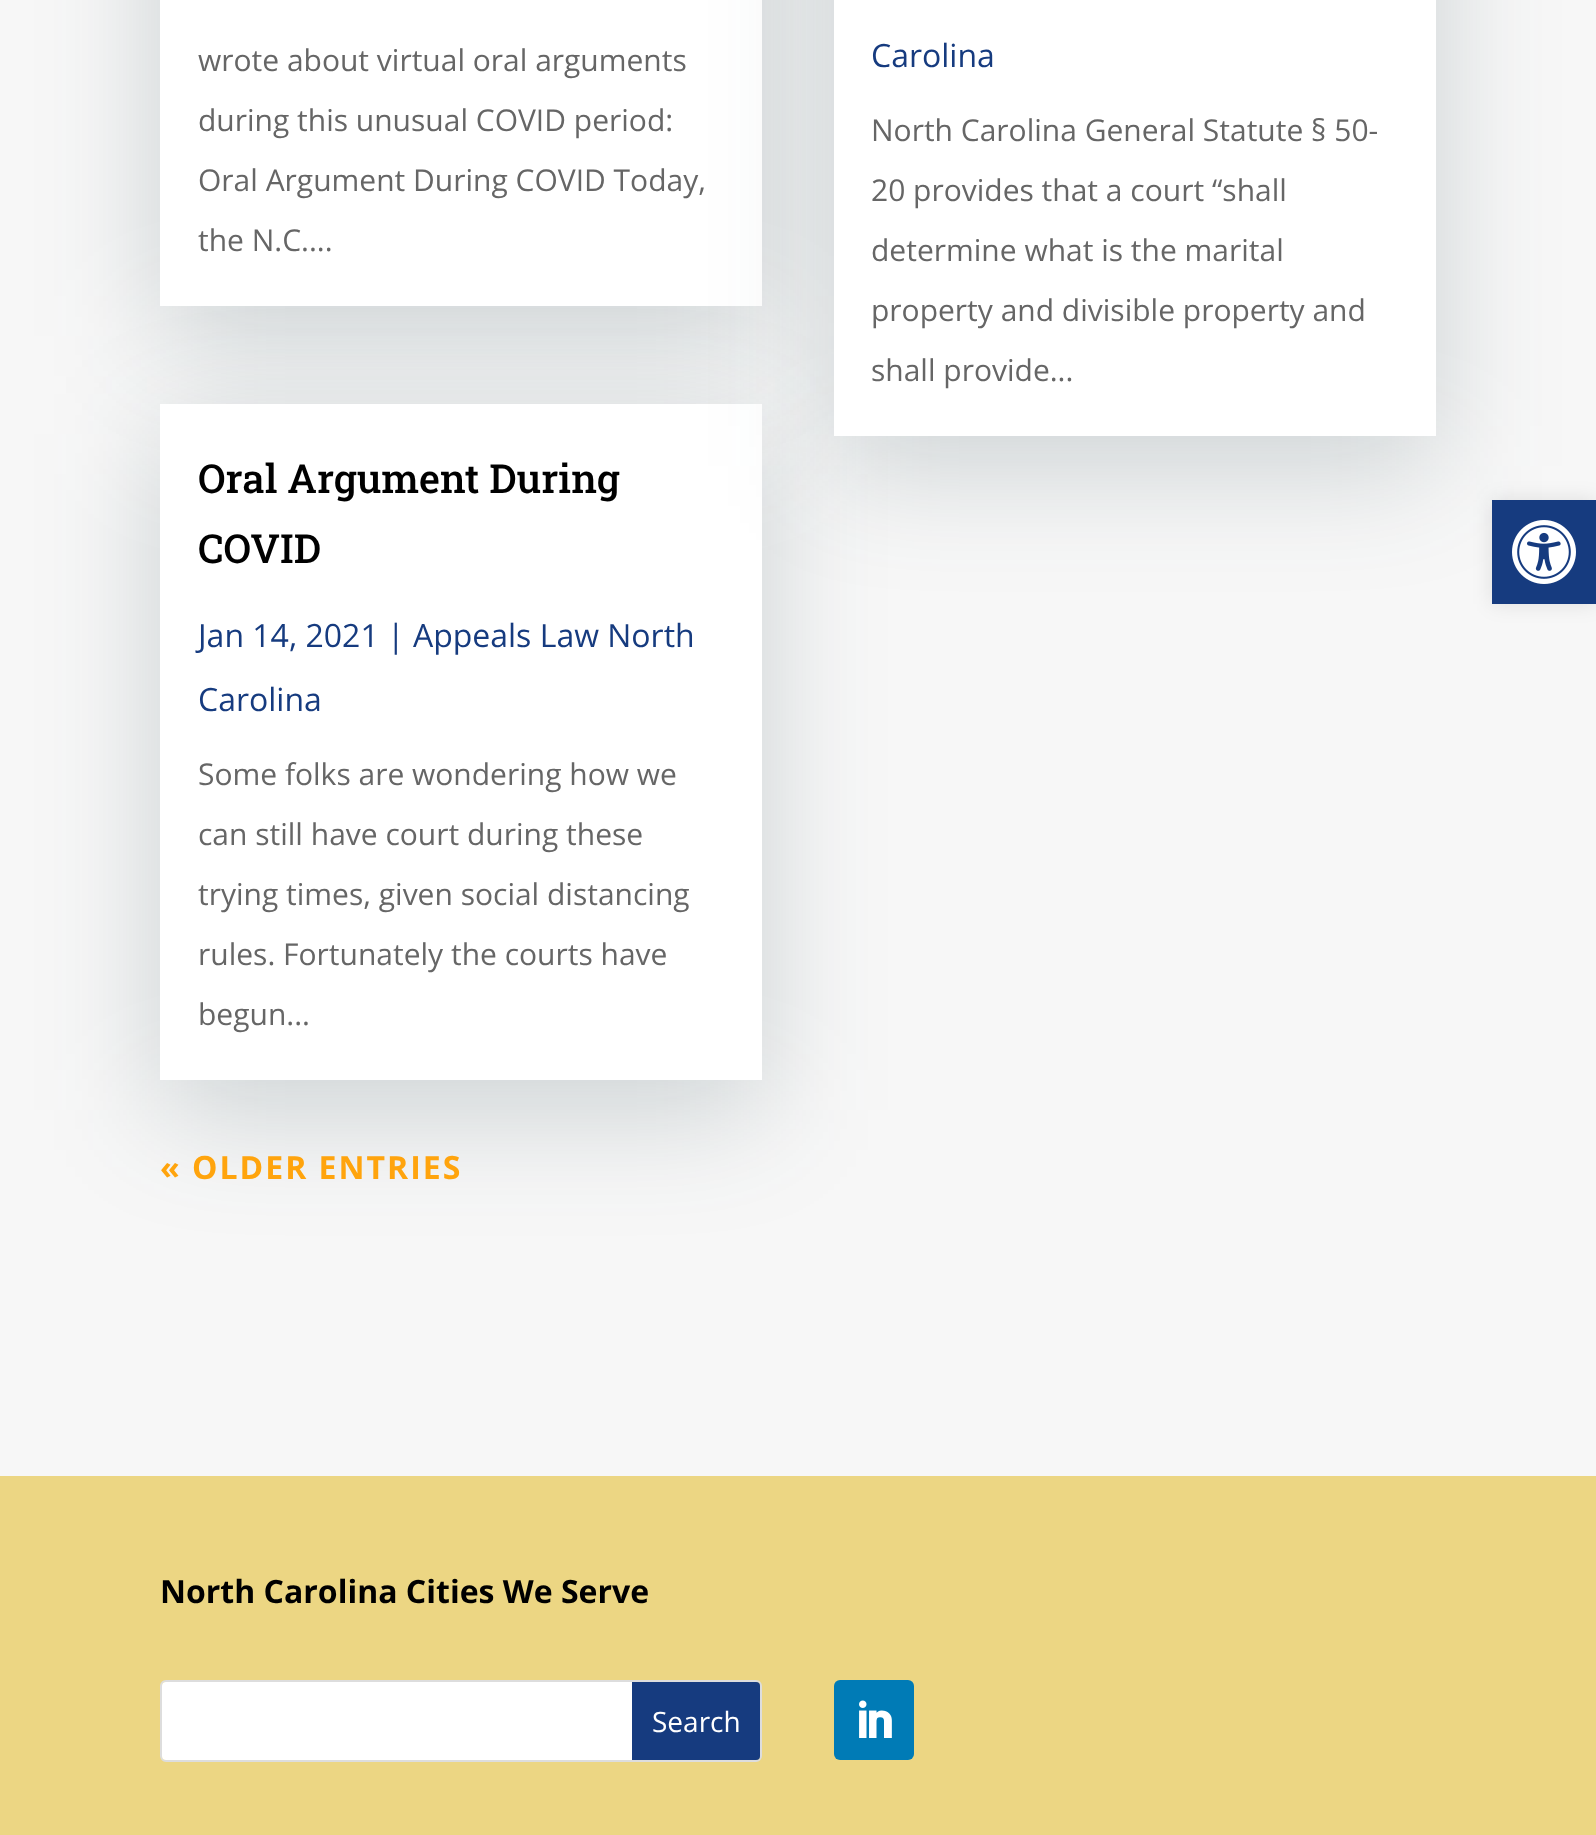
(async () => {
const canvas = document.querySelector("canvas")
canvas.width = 1596
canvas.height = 1835
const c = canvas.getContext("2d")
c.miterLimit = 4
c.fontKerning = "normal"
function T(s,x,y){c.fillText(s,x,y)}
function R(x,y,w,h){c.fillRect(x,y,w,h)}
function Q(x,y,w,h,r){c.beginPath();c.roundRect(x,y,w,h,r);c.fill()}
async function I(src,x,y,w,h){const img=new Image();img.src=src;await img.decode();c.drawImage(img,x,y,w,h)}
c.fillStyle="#f7f7f7"
R(0,0,1596,1835)
c.fillStyle="#1d3d4733"
c.filter="blur(60px)"
c.beginPath()
c.rect(160,-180,602,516)
c.fill()
c.filter="none"
c.fillStyle="#fff"
R(160,0,602,306)
c.font="30px Open Sans"
c.fillStyle="#666"
T("wrote about virtual oral arguments",198,71)
T("during this unusual COVID period:",198,131)
T("Oral Argument During COVID Today,",198,191)
T("the N.C....",198,251)
c.fillStyle="#1d3d4733"
c.filter="blur(60px)"
c.beginPath()
c.rect(160,434,602,676)
c.fill()
c.filter="none"
c.fillStyle="#fff"
R(160,404,602,676)
c.font="500 40px Roboto Slab"
c.fillStyle="#000"
T("Oral Argument During",198,493)
T("COVID",198,563)
c.font="32px Open Sans"
c.fillStyle="#163b7f"
T("Jan 14, 2021 | Appeals Law North",198,647)
T("Carolina",198,711)
c.font="30px Open Sans"
c.fillStyle="#666"
T("Some folks are wondering how we",198,785)
T("can still have court during these",198,845)
T("trying times, given social distancing",198,905)
T("rules. Fortunately the courts have",198,965)
T("begun...",198,1025)
c.fillStyle="#1d3d4733"
c.filter="blur(60px)"
c.beginPath()
c.rect(834,-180,602,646)
c.fill()
c.filter="none"
c.fillStyle="#fff"
R(834,0,602,436)
c.font="32px Open Sans"
c.fillStyle="#163b7f"
T("Carolina",871,67)
c.font="30px Open Sans"
c.fillStyle="#666"
T("North Carolina General Statute § 50-",871,141)
T("20 provides that a court “shall",871,201)
T("determine what is the marital",871,261)
T("property and divisible property and",871,321)
T("shall provide...",871,381)
c.letterSpacing="2px"
c.font="bold 32px Open Sans"
c.fillStyle="#ffa40d"
T("« OLDER ENTRIES",160,1179)
c.fillStyle="#ecd683"
R(0,1476,1596,359)
c.letterSpacing="0px"
c.fillStyle="#000"
T("North Carolina Cities We Serve",160,1603)
c.beginPath()
c.roundRect(161,1681,600,80,5)
c.strokeStyle="#ddd"
c.lineWidth=2
c.stroke()
c.fillStyle="#fff"
c.beginPath()
c.roundRect(162,1682,470,78,[4,0,0,4])
c.fill()
c.fillStyle="#163b7f"
c.beginPath()
c.roundRect(632,1682,128,78,[0,4,4,0])
c.fill()
c.font="28px Open Sans"
c.fillStyle="#fff"
T("Search",652,1732)
c.fillStyle="#007bb6"
Q(834,1680,80,80,6)
await I("1.png",859,1700,33,38)
c.fillStyle="#0000001a"
c.filter="blur(10px)"
c.beginPath()
c.rect(1492,500,104,104)
c.fill()
c.filter="none"
c.fillStyle="#163b7f"
R(1492,500,104,104)
await I("2.png",1512,520,64,64)
})()
